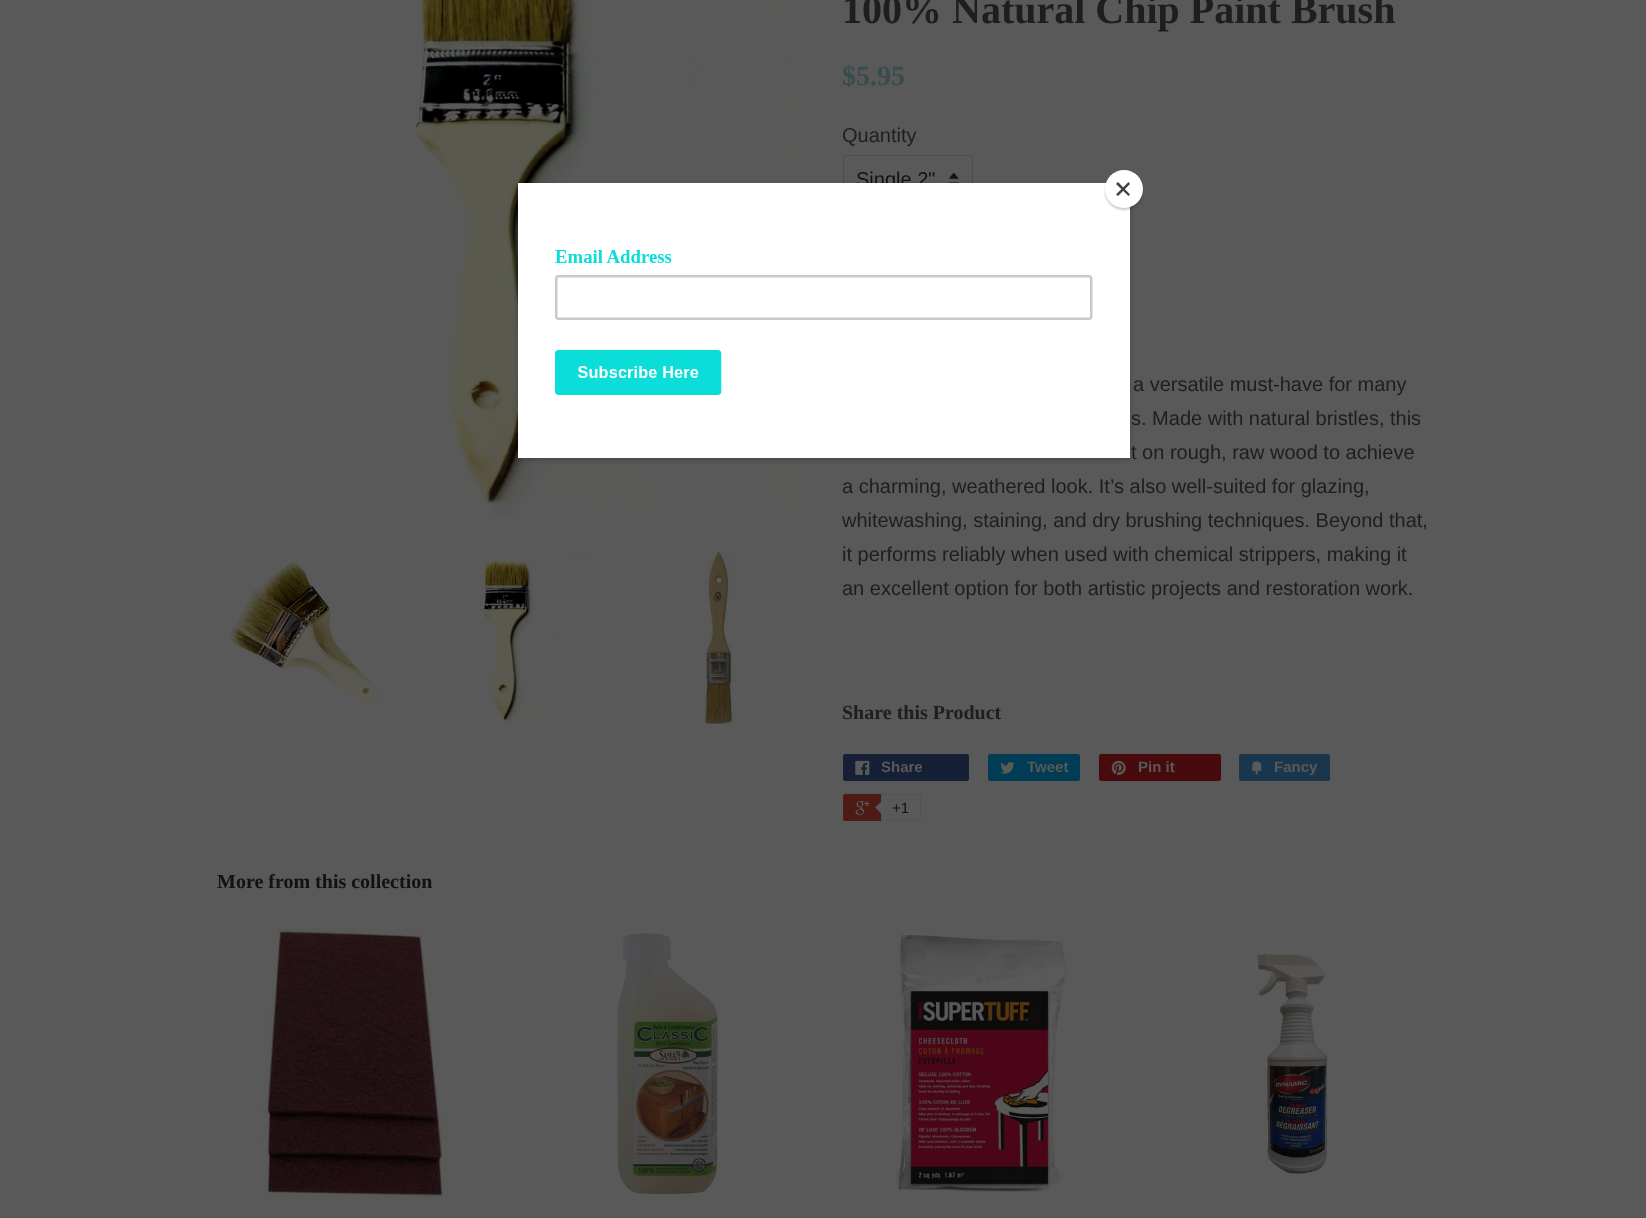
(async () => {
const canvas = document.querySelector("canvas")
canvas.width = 1646
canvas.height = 1218
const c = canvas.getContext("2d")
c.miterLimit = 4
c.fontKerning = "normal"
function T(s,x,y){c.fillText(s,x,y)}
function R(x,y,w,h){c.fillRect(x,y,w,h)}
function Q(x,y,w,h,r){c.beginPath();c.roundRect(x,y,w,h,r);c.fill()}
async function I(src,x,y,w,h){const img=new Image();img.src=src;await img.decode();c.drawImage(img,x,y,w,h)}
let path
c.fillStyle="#595959"
R(0,0,1646,1218)
await I("1.png",330,0,475,515)
await I("2.png",229,562,155,143)
await I("3.png",482,552,114,172)
await I("4.png",698,552,35,172)
c.font="bold 40px Liberation Serif"
c.fillStyle="#1e1e1e"
T("100% Natural Chip Paint Brush",842,23)
c.font="bold 28px Liberation Serif"
c.fillStyle="#364d4c"
T("$5.95",842,85)
c.font="20px Liberation Sans"
c.fillStyle="#1e1e1e"
T("Quantity",842,142)
await I("5.png",949,173,10,10)
c.beginPath()
c.roundRect(843.5,155.5,129,50,2)
c.strokeStyle="#4d4d4d"
c.stroke()
c.fillStyle="#121212"
T("Single 2\"",856,186)
c.fillStyle="#1e1e1e"
T("a versatile must-have for many",1133,391)
T("s. Made with natural bristles, this",1131,425)
T("t on rough, raw wood to achieve",1131,459)
T("a charming, weathered look. It’s also well-suited for glazing,",842,493)
T("whitewashing, staining, and dry brushing techniques. Beyond that,",842,527)
T("it performs reliably when used with chemical strippers, making it",842,561)
T("an excellent option for both artistic projects and restoration work.",842,595)
c.font="bold 20px Liberation Serif"
T("Share this Product",842,719)
c.fillStyle="#151f35"
Q(843,754,126,27,2.5)
await I("6.png",855,760,15,15)
c.font="bold 15px Liberation Sans"
c.fillStyle="#595959"
T("Share",881,772)
c.fillStyle="#003c53"
Q(988,754,92,27,2.5)
await I("7.png",1000,762,15,12)
c.fillStyle="#595959"
T("Tweet",1027,772)
c.fillStyle="#470b0e"
Q(1099,754,122,27,2.5)
await I("8.png",1111,760,15,15)
c.fillStyle="#595959"
T("Pin it",1138,772)
c.fillStyle="#1a364d"
Q(1239,754,91,27,2.5)
await I("9.png",1252,761,10,14)
c.fillStyle="#595959"
T("Fancy",1274,772)
c.fillStyle="#4d1a14"
Q(843,794,76,27,2.5)
await I("10.png",855,800,15,15)
c.fillStyle="#595959"
c.beginPath()
c.roundRect(881.5,794.5,39,26,[0,2,2,0])
c.fill()
c.strokeStyle="#535353"
c.stroke()
c.fillStyle="#535353"
path = new Path2D("M882.5 800v15l-7.5-7.5z")
c.fill(path)
c.fillStyle="#595959"
path = new Path2D("M884 800v15l-8-7.5z")
c.fill(path)
c.font="15px Liberation Sans"
c.fillStyle="#121212"
T("+1",892,813)
c.font="bold 20px Liberation Serif"
T("More from this collection",217,888)
await I("11.png",261,926,191,272)
await I("12.png",617,933,101,263)
await I("13.png",896,934,170,259)
await I("14.png",1256,953,73,221)
c.fillStyle="#00000033"
c.filter="blur(2.5px)"
c.beginPath()
c.rect(518,185,612,275)
c.fill()
c.filter="none"
await I("15.png",518,183,612,275)
c.filter="blur(1px)"
c.beginPath()
c.roundRect(1105,173,38,37,18.5)
c.fill()
c.filter="none"
c.fillStyle="#fff"
c.beginPath()
c.arc(1124,189,19,0,7)
c.fill()
c.fillStyle="#414141"
path = new Path2D("M1128.5 182l1.5 2l-12 12l-2-1.5z")
c.fill(path)
path = new Path2D("M1116 184l2-2l12 12.5l-1.5 1.5z")
c.fill(path)
})()
